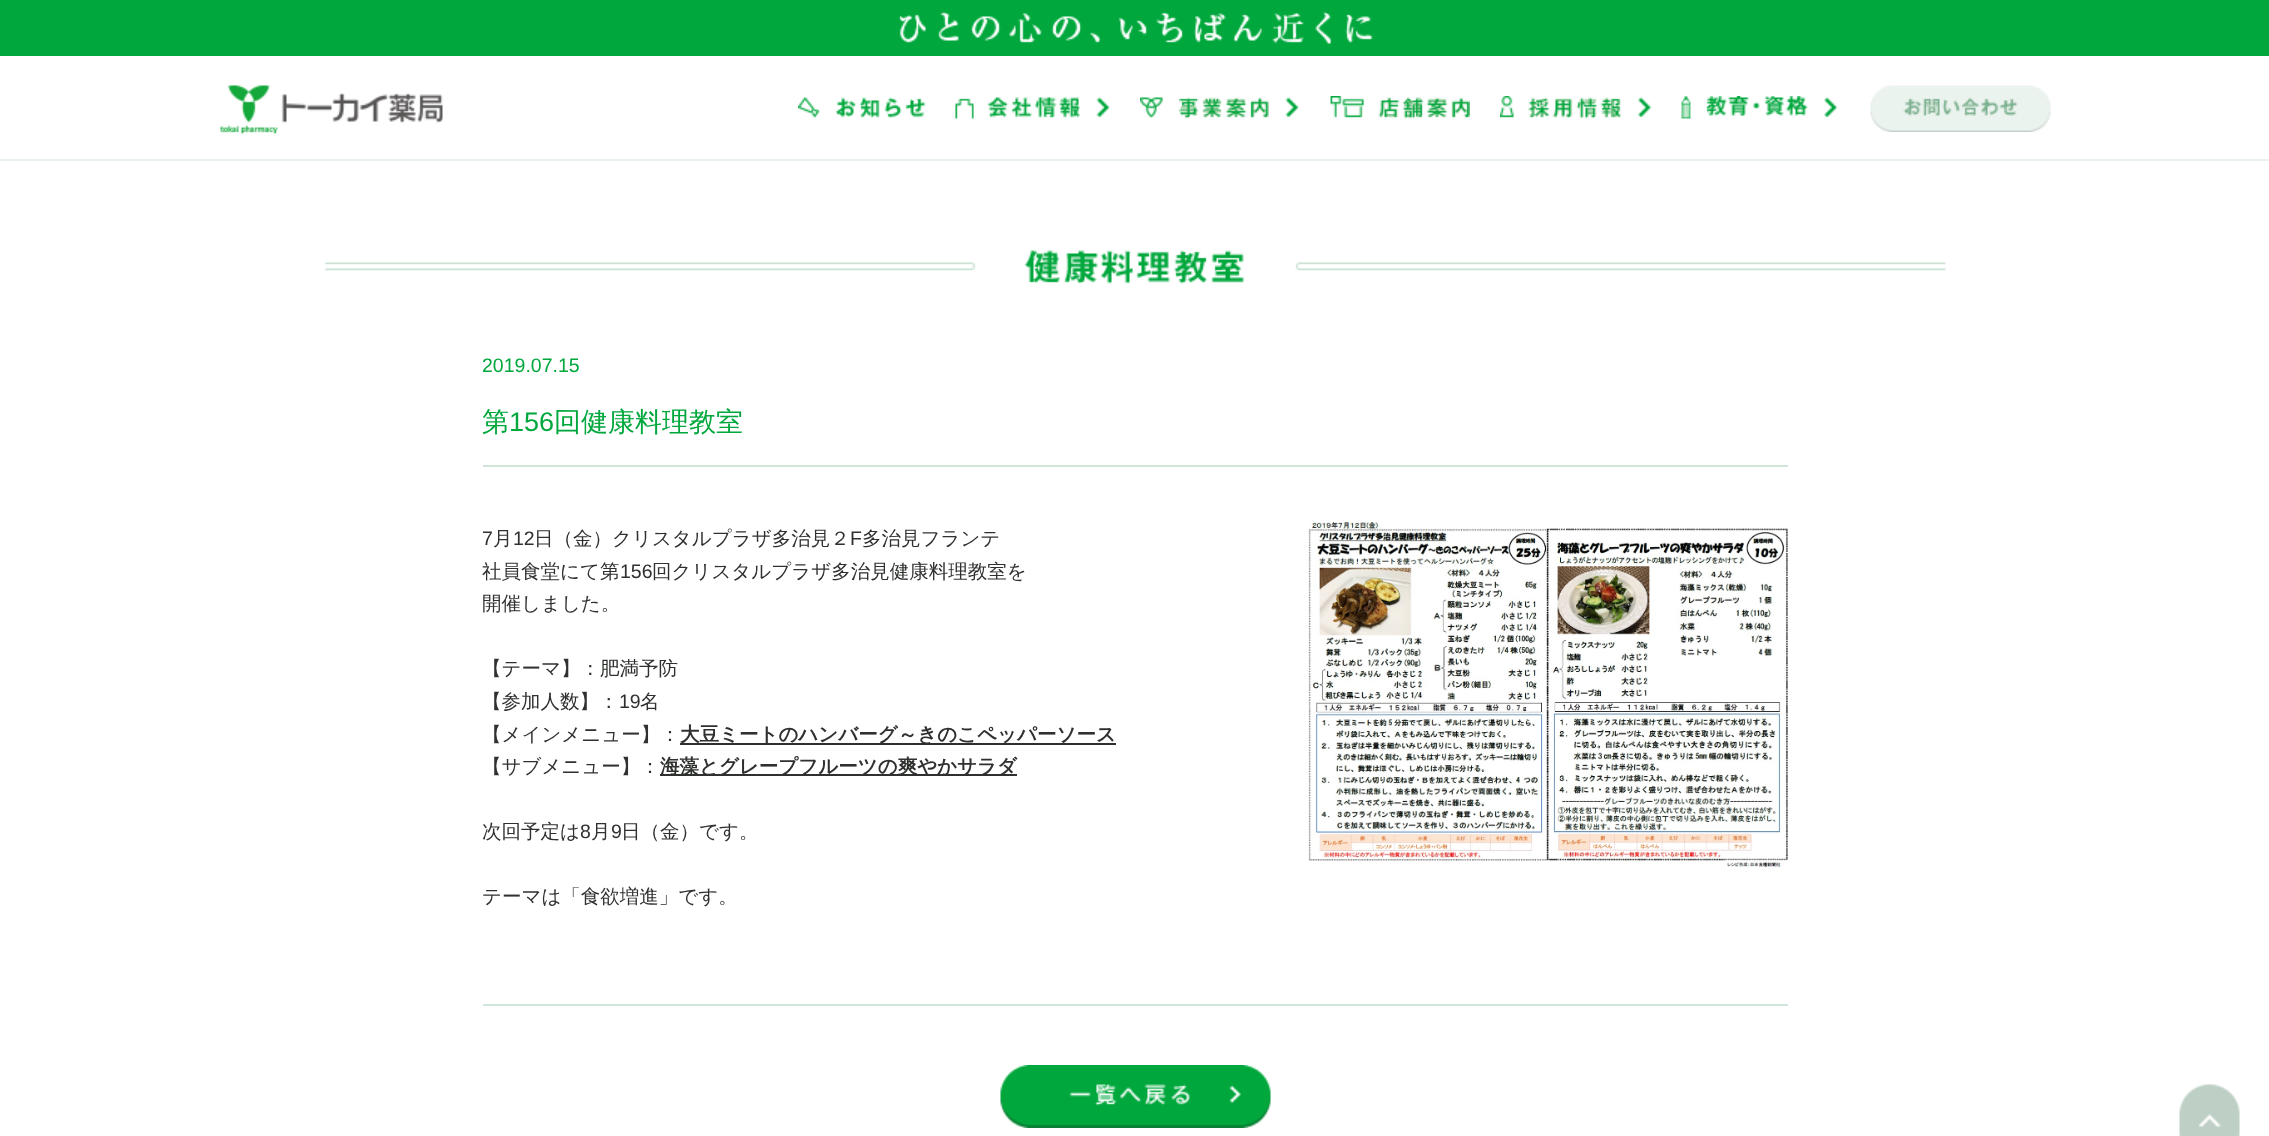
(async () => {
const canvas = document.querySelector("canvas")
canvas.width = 2269
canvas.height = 1136
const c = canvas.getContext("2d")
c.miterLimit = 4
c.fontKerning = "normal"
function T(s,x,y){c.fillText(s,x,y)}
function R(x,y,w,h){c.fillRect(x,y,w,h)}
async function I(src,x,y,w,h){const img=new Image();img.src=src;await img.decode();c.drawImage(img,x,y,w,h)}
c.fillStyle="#fff"
R(0,0,2269,1136)
c.fillStyle="#e9f2ec"
R(0,159,2269,2)
c.fillStyle="#00a73c"
R(0,0,2269,56)
await I("1.png",899,11,474,33)
await I("2.png",220,85,223,49)
await I("3.png",798,97,128,21)
await I("4.png",955,97,125,22)
await I("5.png",1096,97,14,20)
await I("6.png",1140,97,129,22)
await I("7.png",1285,97,14,20)
await I("8.png",1330,96,140,23)
await I("9.png",1500,96,122,23)
await I("10.png",1638,97,14,20)
await I("11.png",1681,96,127,23)
await I("12.png",1824,97,14,20)
await I("13.png",1870,85,181,47)
await I("14.png",325,250,1621,34)
c.fillStyle="#cfe6d8"
R(483,1004,1305,2)
c.font="19.5px Liberation Sans"
c.fillStyle="#00a73c"
T("2019.07.15",482,372)
c.fillStyle="#cfe6d8"
R(483,465,1305,2)
c.font="500 27px WenQuanYi Zen Hei"
c.fillStyle="#00a73c"
T("第",482,431)
c.font="27px Liberation Sans"
T("156",509,431)
c.font="500 27px WenQuanYi Zen Hei"
T("回健康料理教室",554,431)
c.font="19.5px Liberation Sans"
c.fillStyle="#2e312e"
T("7",482,545)
c.font="500 19.5px WenQuanYi Zen Hei"
T("月",493,545)
c.font="19.5px Liberation Sans"
T("12",513,545)
c.font="500 19.5px WenQuanYi Zen Hei"
T("日（金）クリスタルプラザ多治見２",534,545)
c.font="19.5px Liberation Sans"
T("F",850,545)
c.font="500 19.5px WenQuanYi Zen Hei"
T("多治見フランテ",862,545)
T("社員食堂にて第",482,578)
c.font="19.5px Liberation Sans"
T("156",620,578)
c.font="500 19.5px WenQuanYi Zen Hei"
T("回クリスタルプラザ多治見健康料理教室を",652,578)
T("開催しました。",482,610)
T("【テーマ】：肥満予防",482,675)
T("【参加人数】：",482,708)
c.font="19.5px Liberation Sans"
T("19",619,708)
c.font="500 19.5px WenQuanYi Zen Hei"
T("名",640,708)
T("【メインメニュー】：",482,741)
R(680,743,436,2)
c.font="bold 19.5px WenQuanYi Zen Hei"
T("大豆ミートのハンバーグ～きのこペッパーソース",680,741)
c.font="500 19.5px WenQuanYi Zen Hei"
T("【サブメニュー】：",482,773)
R(660,774,357,2)
c.font="bold 19.5px WenQuanYi Zen Hei"
T("海藻とグレープフルーツの爽やかサラダ",660,773)
c.font="500 19.5px WenQuanYi Zen Hei"
T("次回予定は",482,838)
c.font="19.5px Liberation Sans"
T("8",580,838)
c.font="500 19.5px WenQuanYi Zen Hei"
T("月",591,838)
c.font="19.5px Liberation Sans"
T("9",611,838)
c.font="500 19.5px WenQuanYi Zen Hei"
T("日（金）です。",621,838)
T("テーマは「食欲増進」です。",482,903)
await I("15.png",1308,522,480,346)
await I("16.png",1000,1065,271,63)
await I("17.png",2179,1084,61,52)
})()
